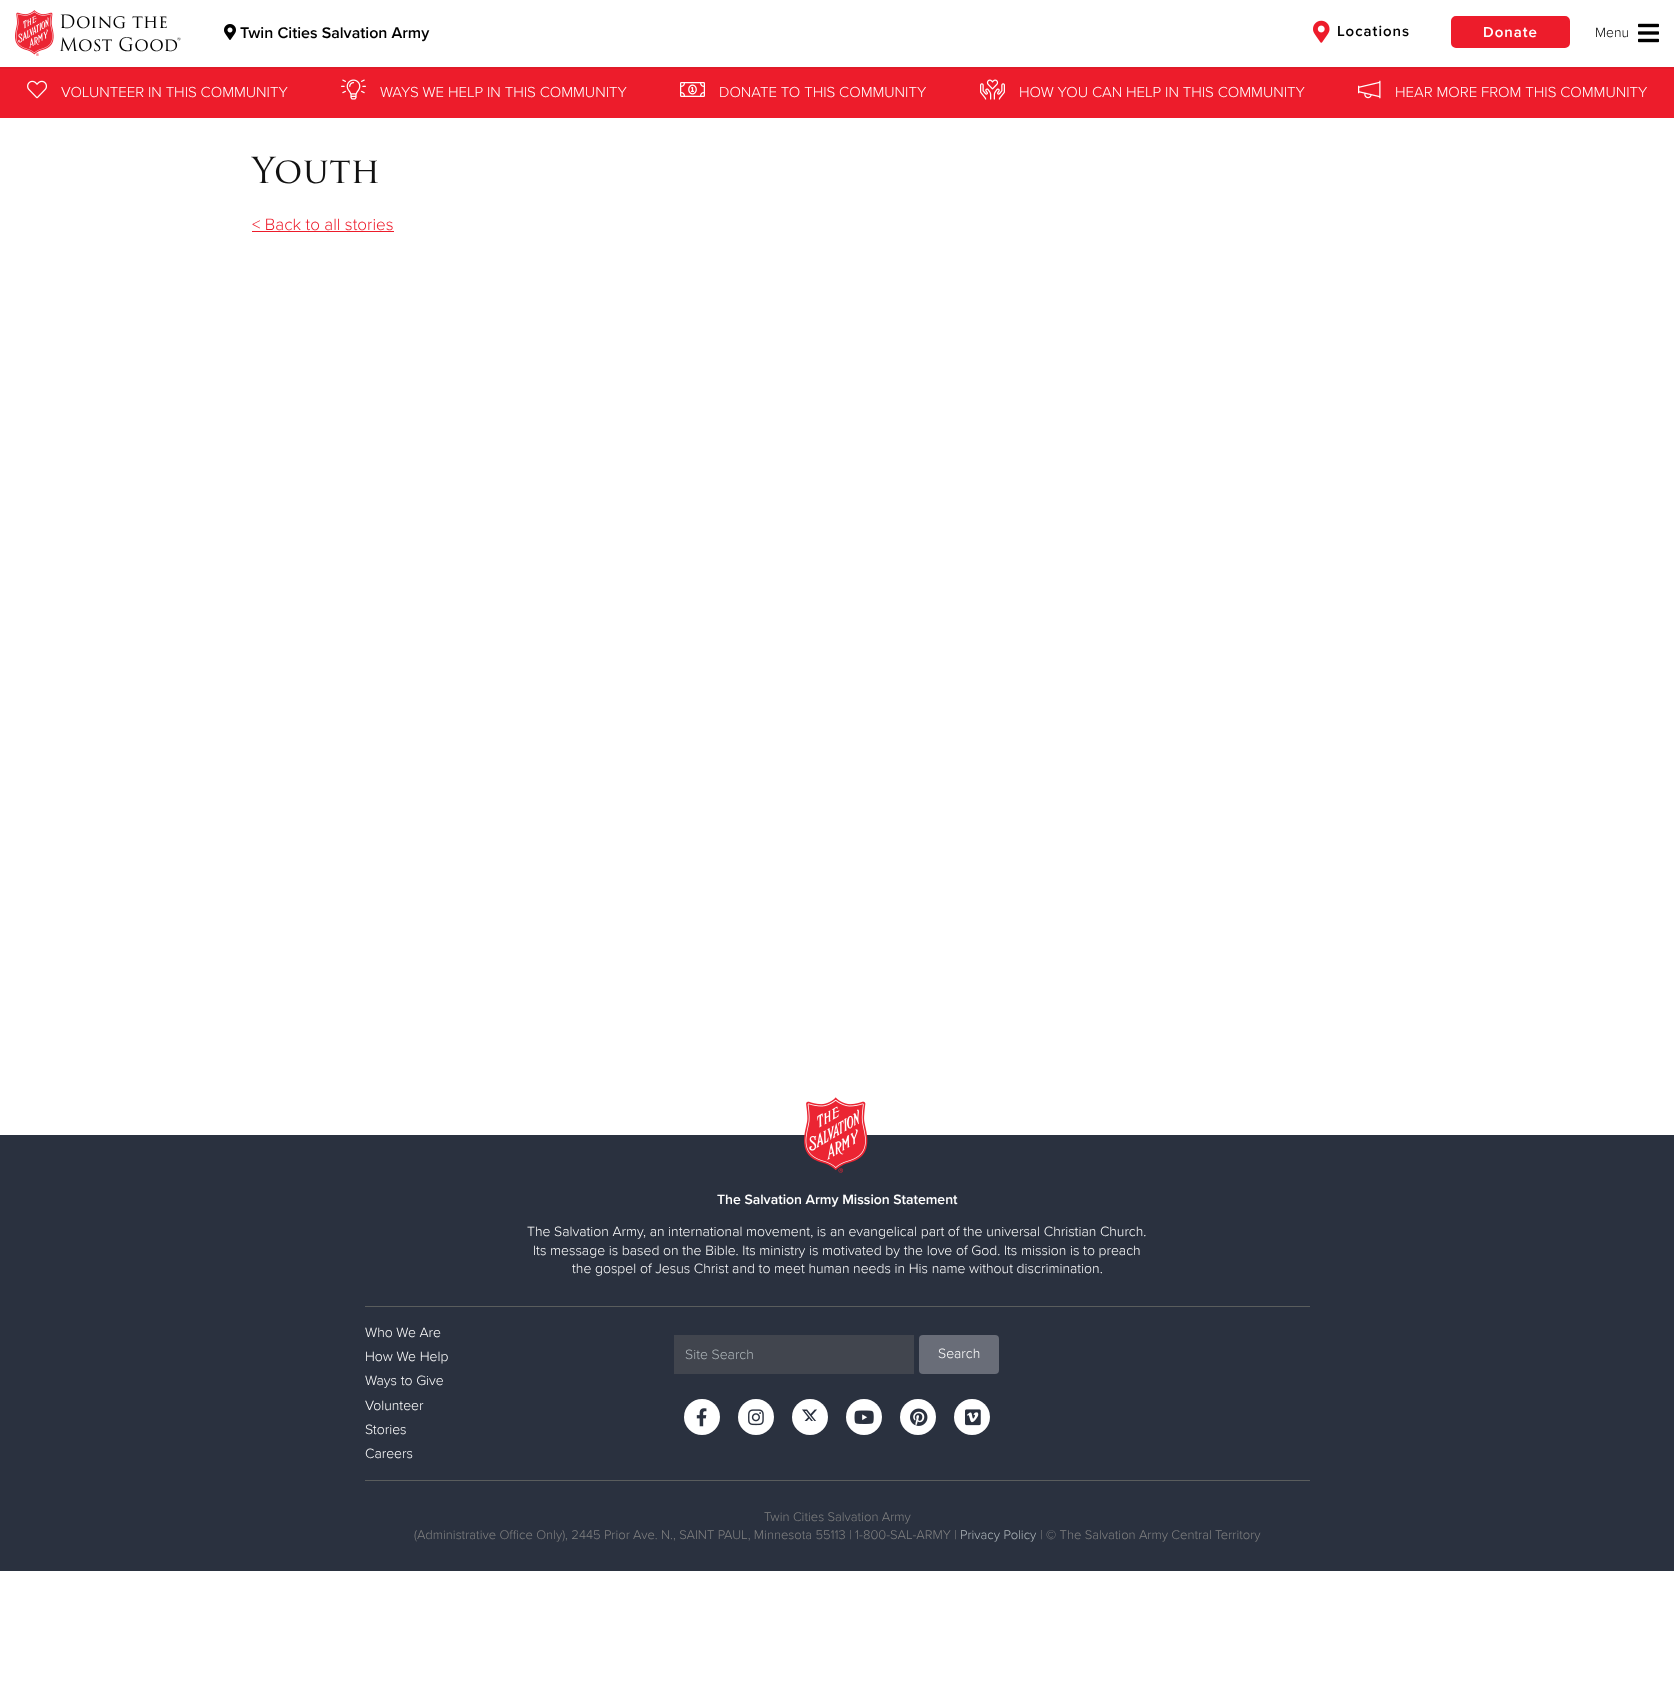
(async () => {
const canvas = document.querySelector("canvas")
canvas.width = 1674
canvas.height = 1702
const c = canvas.getContext("2d")
c.miterLimit = 4
c.fontKerning = "normal"
function T(s,x,y){c.fillText(s,x,y)}
function R(x,y,w,h){c.fillRect(x,y,w,h)}
function Q(x,y,w,h,r){c.beginPath();c.roundRect(x,y,w,h,r);c.fill()}
async function I(src,x,y,w,h){const img=new Image();img.src=src;await img.decode();c.drawImage(img,x,y,w,h)}
c.fillStyle="#fff"
R(0,0,1674,1702)
await I("1.png",15,10,39,46)
c.font="18px 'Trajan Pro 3'"
c.fillStyle="#000"
T("Doing the",59,28)
T("Most Good®",59,51)
await I("2.png",224,24,12,16)
c.font="600 16px Proxima Nova"
T("Twin Cities Salvation Army",240,38)
await I("3.png",1313,20,17,23)
c.letterSpacing="1px"
c.font="600 15px Proxima Nova"
T("Locations",1337,36)
c.fillStyle="#ed1c2b"
c.beginPath()
c.roundRect(1452,17,117,30,4)
c.fill()
c.strokeStyle="#ed1c2b"
c.lineWidth=2
c.stroke()
c.fillStyle="#fff"
T("Donate",1483,37)
c.letterSpacing="0px"
c.font="300 14px Proxima Nova"
c.fillStyle="#000"
T("Menu",1595,37)
await I("4.png",1638,23,21,20)
c.fillStyle="#e11b29"
R(0,67,1674,2)
c.fillStyle="#ed1c2b"
R(0,69,1674,49)
await I("5.png",27,80,20,19)
c.font="300 15px Proxima Nova"
c.fillStyle="#fff"
T("VOLUNTEER IN THIS COMMUNITY",61,97)
await I("6.png",341,79,25,21)
T("WAYS WE HELP IN THIS COMMUNITY",380,97)
await I("7.png",680,82,25,15)
T("DONATE TO THIS COMMUNITY",719,97)
await I("8.png",980,79,25,21)
T("HOW YOU CAN HELP IN THIS COMMUNITY",1019,97)
await I("9.png",1358,80,23,19)
T("HEAR MORE FROM THIS COMMUNITY",1395,97)
c.font="35px 'Trajan Pro 3'"
c.fillStyle="#111"
T("Youth",252,183)
c.font="300 17px Proxima Nova"
c.fillStyle="#ed1c2b"
T("< Back to all stories",252,230)
R(252,231,142,1)
c.fillStyle="#2a313f"
R(0,1135,1674,436)
await I("10.png",804,1097,64,76)
c.font="600 14px Proxima Nova"
c.fillStyle="#fff"
T("The Salvation Army Mission Statement",717,1204)
c.font="300 14px Proxima Nova"
T("The Salvation Army, an international movement, is an evangelical part of the universal Christian Church.",527,1236)
T("Its message is based on the Bible. Its ministry is motivated by the love of God. Its mission is to preach",533,1255)
T("the gospel of Jesus Christ and to meet human needs in His name without discrimination.",572,1273)
c.fillStyle="#5a5d5d"
R(365,1306,945,1)
c.fillStyle="#fff"
T("Who We Are",365,1337)
T("How We Help",365,1361)
T("Ways to Give",365,1385)
T("Volunteer",365,1410)
T("Stories",365,1434)
T("Careers",365,1458)
c.fillStyle="#41454e"
R(674,1335,240,39)
c.fillStyle="#afb7bb"
T("Site Search",685,1359)
c.fillStyle="#696d78"
Q(919,1335,80,39,4)
c.fillStyle="#fff"
T("Search",938,1358)
c.beginPath()
c.arc(702,1417,18,0,7)
c.fill()
await I("11.png",696,1408,11,19)
c.beginPath()
c.arc(756,1417,18,0,7)
c.fill()
await I("12.png",748,1409,16,17)
c.beginPath()
c.arc(810,1417,18,0,7)
c.fill()
await I("13.png",802,1409,15,12)
c.beginPath()
c.arc(864,1417,18,0,7)
c.fill()
await I("14.png",854,1410,20,14)
c.beginPath()
c.arc(918,1417,18,0,7)
c.fill()
await I("15.png",910,1408,18,18)
c.beginPath()
c.arc(972,1417,18,0,7)
c.fill()
await I("16.png",965,1409,16,17)
c.fillStyle="#5a5d5d"
R(365,1480,945,1)
c.font="300 13px Proxima Nova"
c.fillStyle="#808080"
T("Twin Cities Salvation Army",764,1521)
T("(Administrative Office Only), 2445 Prior Ave. N., SAINT PAUL, Minnesota 55113 | 1-800-SAL-ARMY |",414,1539)
c.fillStyle="#afb7bb"
T("Privacy Policy",960,1539)
c.fillStyle="#808080"
T("| © The Salvation Army Central Territory",1040,1539)
})()
